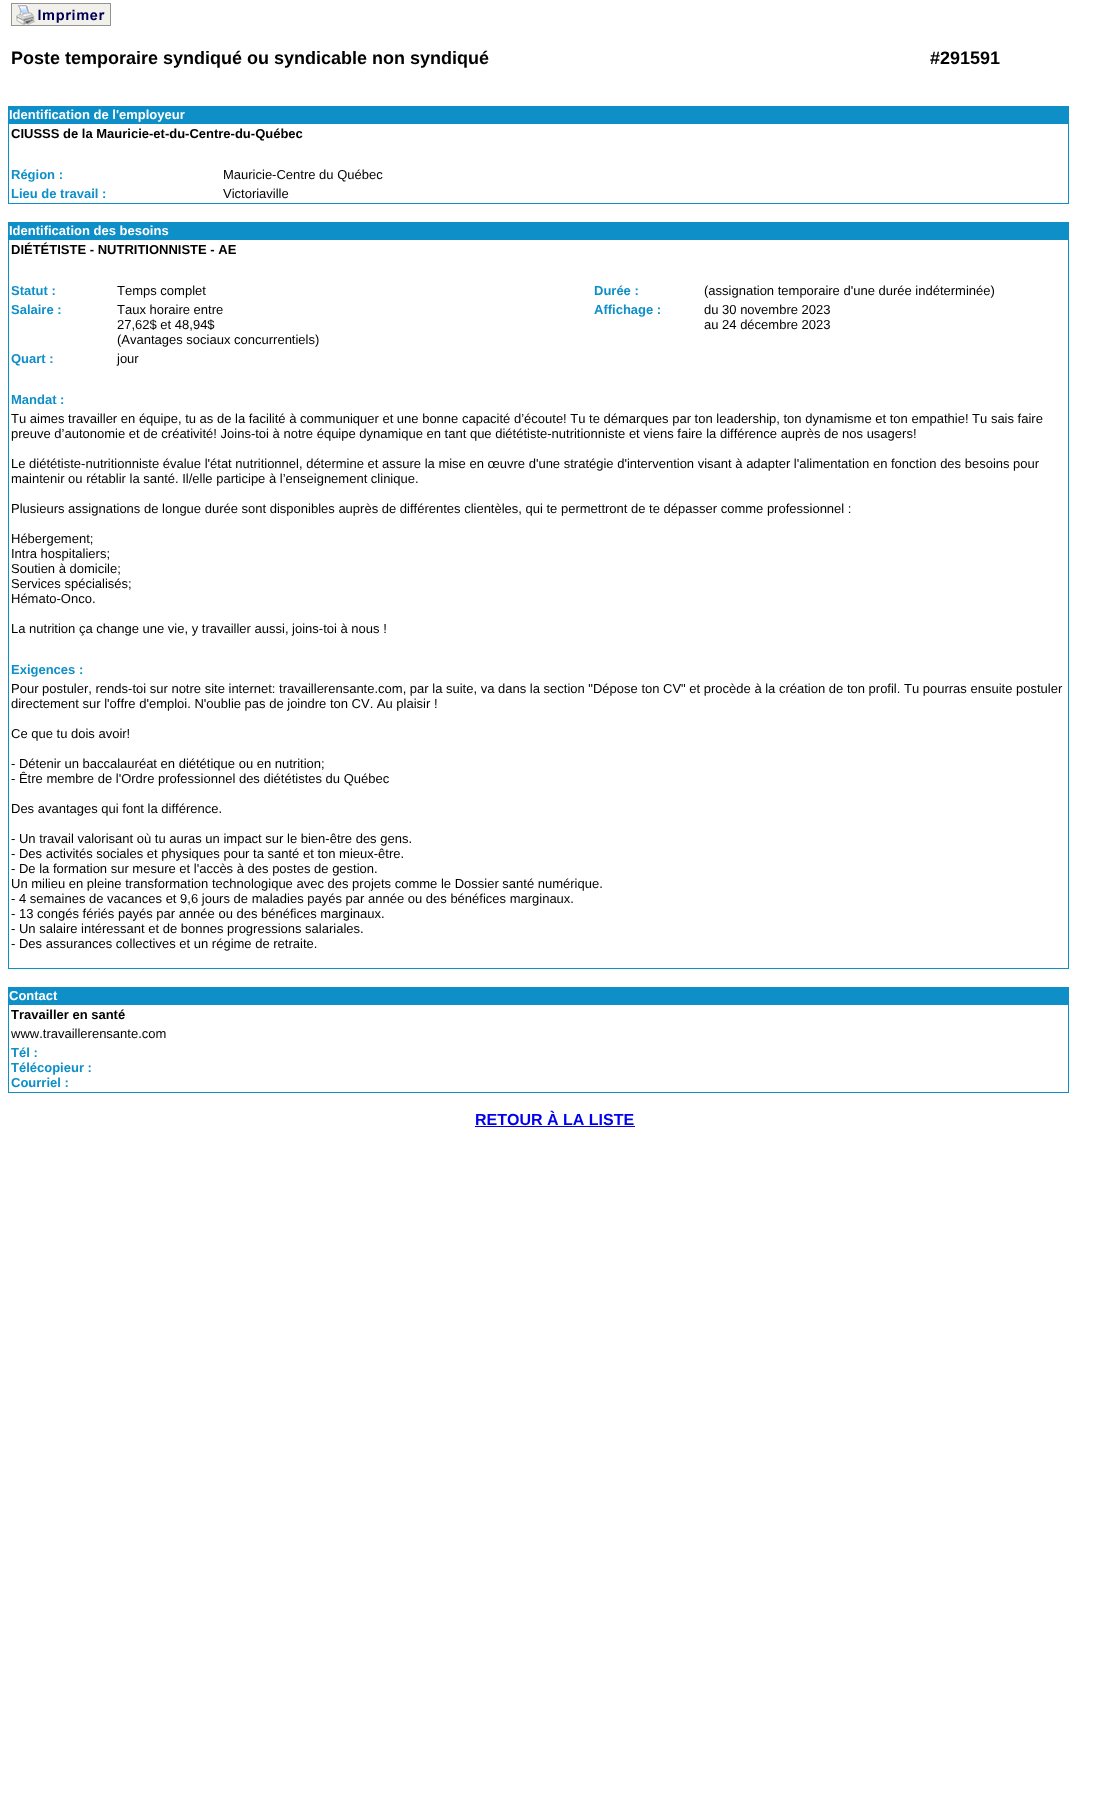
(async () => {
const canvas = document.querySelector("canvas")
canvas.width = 1110
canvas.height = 1802
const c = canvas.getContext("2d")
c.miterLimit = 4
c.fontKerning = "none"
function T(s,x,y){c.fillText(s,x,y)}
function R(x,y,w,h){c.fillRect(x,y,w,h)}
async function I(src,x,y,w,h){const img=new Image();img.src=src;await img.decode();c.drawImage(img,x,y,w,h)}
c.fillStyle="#fff"
R(0,0,1110,1802)
await I("1.png",11,3,100,23)
c.font="bold 18px Liberation Sans"
c.fillStyle="#000"
T("Poste temporaire syndiqué ou syndicable non syndiqué",11,64)
T("#291591",930,64)
c.fillStyle="#0f8fc8"
R(8,106,1061,98)
c.font="bold 13px Liberation Sans"
c.fillStyle="#fff"
T("Identification de l'employeur",9,119)
R(9,124,1059,79)
c.fillStyle="#000"
T("CIUSSS de la Mauricie-et-du-Centre-du-Québec",11,138)
c.fillStyle="#0f8fc8"
T("Région :",11,179)
c.font="13px Liberation Sans"
c.fillStyle="#000"
T("Mauricie-Centre du Québec",223,179)
c.font="bold 13px Liberation Sans"
c.fillStyle="#0f8fc8"
T("Lieu de travail :",11,198)
c.font="13px Liberation Sans"
c.fillStyle="#000"
T("Victoriaville",223,198)
c.fillStyle="#0f8fc8"
R(8,222,1061,747)
c.font="bold 13px Liberation Sans"
c.fillStyle="#fff"
T("Identification des besoins",9,235)
R(9,240,1059,728)
c.fillStyle="#000"
T("DIÉTÉTISTE - NUTRITIONNISTE - AE",11,254)
c.fillStyle="#0f8fc8"
T("Statut :",11,295)
c.font="13px Liberation Sans"
c.fillStyle="#000"
T("Temps complet",117,295)
c.font="bold 13px Liberation Sans"
c.fillStyle="#0f8fc8"
T("Durée :",594,295)
c.font="13px Liberation Sans"
c.fillStyle="#000"
T("(assignation temporaire d'une durée indéterminée)",704,295)
c.font="bold 13px Liberation Sans"
c.fillStyle="#0f8fc8"
T("Salaire :",11,314)
c.font="13px Liberation Sans"
c.fillStyle="#000"
T("Taux horaire entre",117,314)
T("27,62$ et 48,94$",117,329)
T("(Avantages sociaux concurrentiels)",117,344)
c.font="bold 13px Liberation Sans"
c.fillStyle="#0f8fc8"
T("Affichage :",594,314)
c.font="13px Liberation Sans"
c.fillStyle="#000"
T("du 30 novembre 2023",704,314)
T("au 24 décembre 2023",704,329)
c.font="bold 13px Liberation Sans"
c.fillStyle="#0f8fc8"
T("Quart :",11,363)
c.font="13px Liberation Sans"
c.fillStyle="#000"
T("jour",117,363)
c.font="bold 13px Liberation Sans"
c.fillStyle="#0f8fc8"
T("Mandat :",11,404)
c.font="13px Liberation Sans"
c.fillStyle="#000"
T("Tu aimes travailler en équipe, tu as de la facilité à communiquer et une bonne capacité d’écoute! Tu te démarques par ton leadership, ton dynamisme et ton empathie! Tu sais faire",11,423)
T("preuve d’autonomie et de créativité! Joins-toi à notre équipe dynamique en tant que diététiste-nutritionniste et viens faire la différence auprès de nos usagers!",11,438)
T("Le diététiste-nutritionniste évalue l'état nutritionnel, détermine et assure la mise en œuvre d'une stratégie d'intervention visant à adapter l'alimentation en fonction des besoins pour",11,468)
T("maintenir ou rétablir la santé. Il/elle participe à l’enseignement clinique.",11,483)
T("Plusieurs assignations de longue durée sont disponibles auprès de différentes clientèles, qui te permettront de te dépasser comme professionnel :",11,513)
T("Hébergement;",11,543)
T("Intra hospitaliers;",11,558)
T("Soutien à domicile;",11,573)
T("Services spécialisés;",11,588)
T("Hémato-Onco.",11,603)
T("La nutrition ça change une vie, y travailler aussi, joins-toi à nous !",11,633)
c.font="bold 13px Liberation Sans"
c.fillStyle="#0f8fc8"
T("Exigences :",11,674)
c.font="13px Liberation Sans"
c.fillStyle="#000"
T("Pour postuler, rends-toi sur notre site internet: travaillerensante.com, par la suite, va dans la section \"Dépose ton CV\" et procède à la création de ton profil. Tu pourras ensuite postuler",11,693)
T("directement sur l'offre d'emploi. N'oublie pas de joindre ton CV. Au plaisir !",11,708)
T("Ce que tu dois avoir!",11,738)
T("- Détenir un baccalauréat en diététique ou en nutrition;",11,768)
T("- Être membre de l'Ordre professionnel des diététistes du Québec",11,783)
T("Des avantages qui font la différence.",11,813)
T("- Un travail valorisant où tu auras un impact sur le bien-être des gens.",11,843)
T("- Des activités sociales et physiques pour ta santé et ton mieux-être.",11,858)
T("- De la formation sur mesure et l'accès à des postes de gestion.",11,873)
T("Un milieu en pleine transformation technologique avec des projets comme le Dossier santé numérique.",11,888)
T("- 4 semaines de vacances et 9,6 jours de maladies payés par année ou des bénéfices marginaux.",11,903)
T("- 13 congés fériés payés par année ou des bénéfices marginaux.",11,918)
T("- Un salaire intéressant et de bonnes progressions salariales.",11,933)
T("- Des assurances collectives et un régime de retraite.",11,948)
c.fillStyle="#0f8fc8"
R(8,987,1061,106)
c.font="bold 13px Liberation Sans"
c.fillStyle="#fff"
T("Contact",9,1000)
R(9,1005,1059,87)
c.fillStyle="#000"
T("Travailler en santé",11,1019)
c.font="13px Liberation Sans"
T("www.travaillerensante.com",11,1038)
c.font="bold 13px Liberation Sans"
c.fillStyle="#0f8fc8"
T("Tél :",11,1057)
T("Télécopieur :",11,1072)
T("Courriel :",11,1087)
c.font="bold 16px Liberation Sans"
c.fillStyle="#00e"
T("RETOUR À LA LISTE",475,1125)
R(475,1126,160,1)
})()
